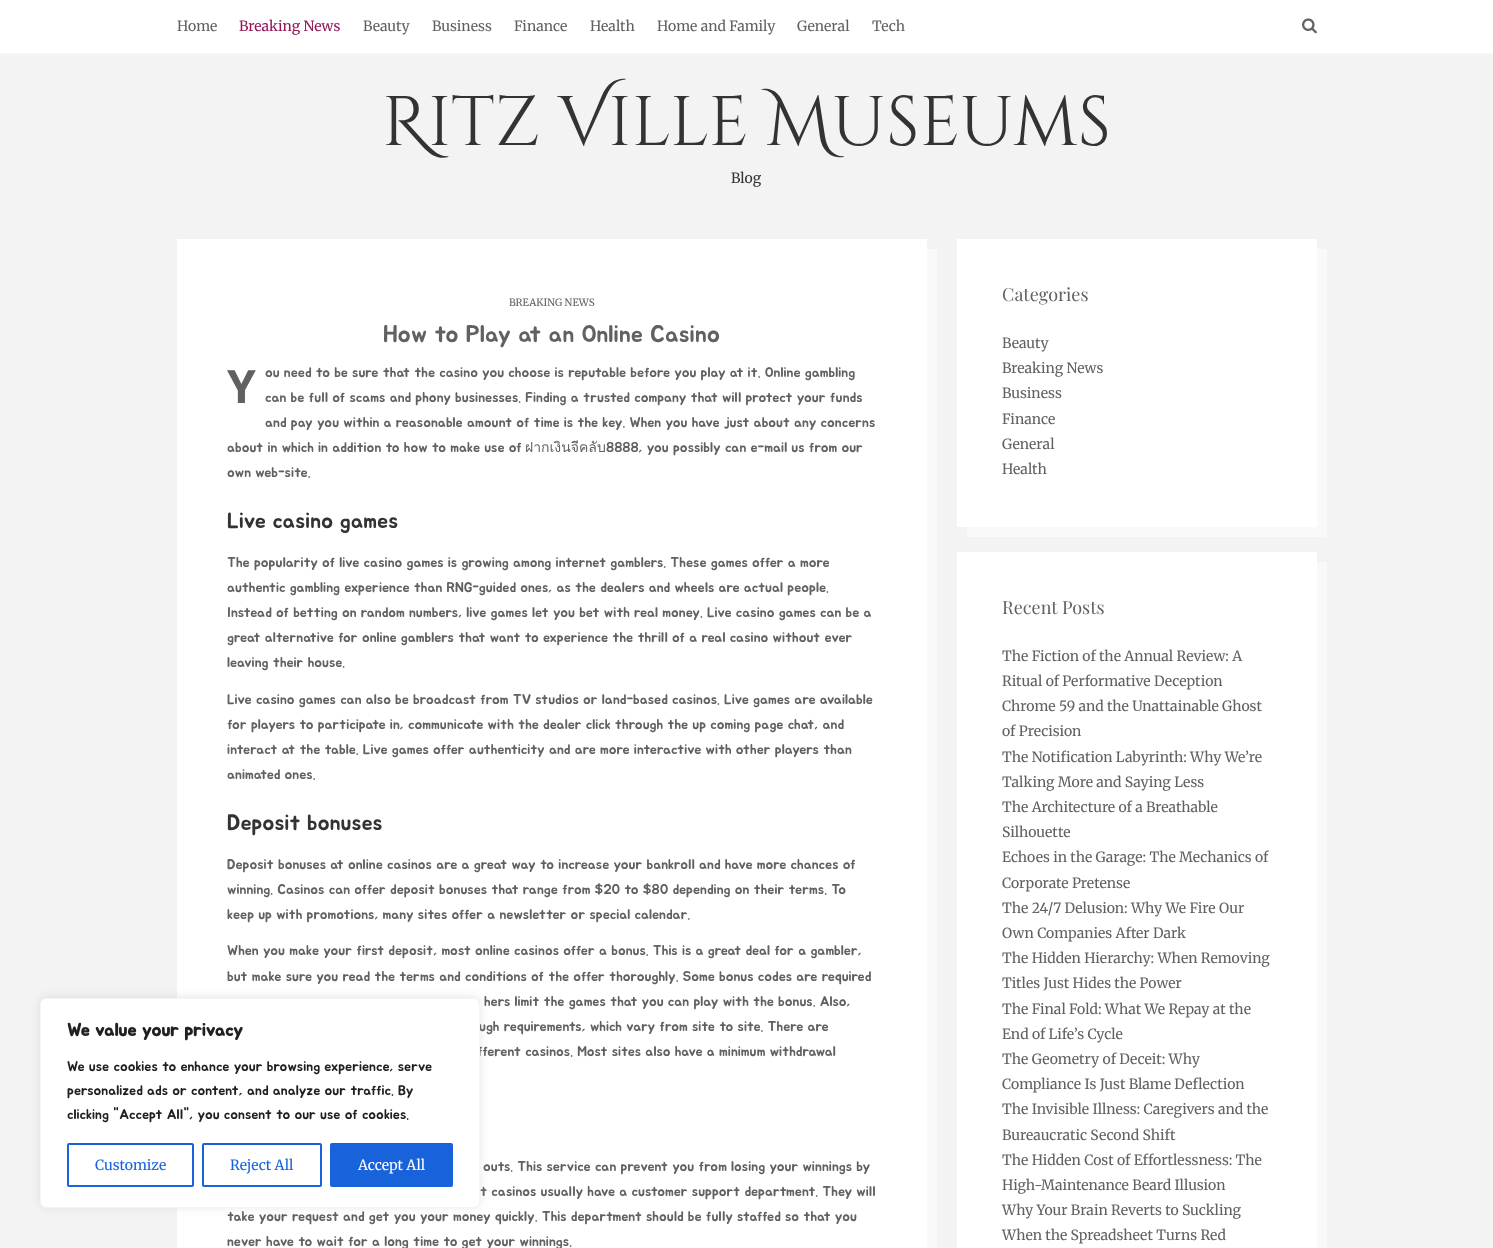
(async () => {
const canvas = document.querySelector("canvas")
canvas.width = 1493
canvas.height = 1248
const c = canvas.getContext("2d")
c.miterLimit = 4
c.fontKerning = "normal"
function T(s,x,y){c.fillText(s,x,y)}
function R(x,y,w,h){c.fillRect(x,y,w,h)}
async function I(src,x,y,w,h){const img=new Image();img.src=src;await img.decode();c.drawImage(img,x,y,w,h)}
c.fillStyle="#f3f3f3"
R(0,0,1493,1248)
c.fillStyle="#fff"
R(0,0,1493,53)
c.fillStyle="#f9f9f9"
R(0,53,1493,1)
c.font="14px Merriweather"
c.fillStyle="#616161"
T("Home",177,31)
c.fillStyle="#941559"
T("Breaking News",239,31)
c.fillStyle="#616161"
T("Beauty",363,31)
T("Business",432,31)
T("Finance",514,31)
T("Health",590,31)
T("Home and Family",657,31)
T("General",797,31)
T("Tech",872,31)
await I("1.png",1302,18,15,16)
c.font="70px Cinzel Decorative"
c.fillStyle="#333"
T("Ritz Ville Museums",382,145)
c.font="14px Merriweather"
T("Blog",731,183)
c.fillStyle="#fff"
R(177,239,750,1009)
c.font="10px Merriweather"
c.fillStyle="#616161"
T("BREAKING NEWS",509,306)
c.fillStyle="#f9f9f9"
R(927,249,10,999)
c.font="24px Jua"
c.fillStyle="#616161"
T("How to Play at an Online Casino",383,342)
c.font="bold 46px Noto Sans"
T("Y",227,403)
c.font="14px Jua"
T("ou need to be sure that the casino you choose is reputable before you play at it. Online gambling",265,377)
T("can be full of scams and phony businesses. Finding a trusted company that will protect your funds",265,402)
T("and pay you within a reasonable amount of time is the key. When you have just about any concerns",265,427)
T("about in which in addition to how to make use of",227,452)
c.font="14px Loma"
T("ฝากเงินจีคลับ",525,452)
c.font="14px Jua"
T("8888, you possibly can e-mail us from our",606,452)
T("own web-site.",227,477)
c.font="22px Jua"
c.fillStyle="#333"
T("Live casino games",227,528)
c.font="14px Jua"
c.fillStyle="#616161"
T("The popularity of live casino games is growing among internet gamblers. These games offer a more",227,567)
T("authentic gambling experience than RNG-guided ones, as the dealers and wheels are actual people.",227,592)
T("Instead of betting on random numbers, live games let you bet with real money. Live casino games can be a",227,617)
T("great alternative for online gamblers that want to experience the thrill of a real casino without ever",227,642)
T("leaving their house.",227,667)
T("Live casino games can also be broadcast from TV studios or land-based casinos. Live games are available",227,704)
T("for players to participate in, communicate with the dealer click through the up coming page chat, and",227,729)
T("interact at the table. Live games offer authenticity and are more interactive with other players than",227,754)
T("animated ones.",227,779)
c.font="22px Jua"
c.fillStyle="#333"
T("Deposit bonuses",227,830)
c.font="14px Jua"
c.fillStyle="#616161"
T("Deposit bonuses at online casinos are a great way to increase your bankroll and have more chances of",227,869)
T("winning. Casinos can offer deposit bonuses that range from $20 to $80 depending on their terms. To",227,894)
T("keep up with promotions, many sites offer a newsletter or special calendar.",227,919)
T("When you make your first deposit, most online casinos offer a bonus. This is a great deal for a gambler,",227,955)
T("but make sure you read the terms and conditions of the offer thoroughly. Some bonus codes are required",227,981)
T("hers limit the games that you can play with the bonus. Also,",484,1006)
T("ugh requirements, which vary from site to site. There are",479,1031)
T("fferent casinos. Most sites also have a minimum withdrawal",477,1056)
T("outs. This service can prevent you from losing your winnings by",483,1171)
T("t casinos usually have a customer support department. They will",480,1196)
T("take your request and get you your money quickly. This department should be fully staffed so that you",227,1221)
T("never have to wait for a long time to get your winnings.",227,1246)
c.fillStyle="#fff"
R(957,239,360,288)
c.font="18px Playfair Display"
c.fillStyle="#616161"
T("Categories",1002,301)
c.fillStyle="#f9f9f9"
R(1317,249,10,278)
c.font="14px Merriweather"
c.fillStyle="#616161"
T("Beauty",1002,348)
T("Breaking News",1002,373)
T("Business",1002,398)
T("Finance",1002,424)
T("General",1002,449)
T("Health",1002,474)
c.fillStyle="#f9f9f9"
R(967,527,360,10)
c.fillStyle="#fff"
R(957,552,360,696)
c.font="18px Playfair Display"
c.fillStyle="#616161"
T("Recent Posts",1002,614)
c.fillStyle="#f9f9f9"
R(1317,562,10,686)
c.font="14px Merriweather"
c.fillStyle="#616161"
T("The Fiction of the Annual Review: A",1002,661)
T("Ritual of Performative Deception",1002,686)
T("Chrome 59 and the Unattainable Ghost",1002,711)
T("of Precision",1002,736)
T("The Notification Labyrinth: Why We’re",1002,762)
T("Talking More and Saying Less",1002,787)
T("The Architecture of a Breathable",1002,812)
T("Silhouette",1002,837)
T("Echoes in the Garage: The Mechanics of",1002,862)
T("Corporate Pretense",1002,888)
T("The 24/7 Delusion: Why We Fire Our",1002,913)
T("Own Companies After Dark",1002,938)
T("The Hidden Hierarchy: When Removing",1002,963)
T("Titles Just Hides the Power",1002,988)
T("The Final Fold: What We Repay at the",1002,1014)
T("End of Life’s Cycle",1002,1039)
T("The Geometry of Deceit: Why",1002,1064)
T("Compliance Is Just Blame Deflection",1002,1089)
T("The Invisible Illness: Caregivers and the",1002,1114)
T("Bureaucratic Second Shift",1002,1140)
T("The Hidden Cost of Effortlessness: The",1002,1165)
T("High-Maintenance Beard Illusion",1002,1190)
T("Why Your Brain Reverts to Suckling",1002,1215)
T("When the Spreadsheet Turns Red",1002,1240)
c.fillStyle="#acabab4d"
c.filter="blur(5px)"
c.beginPath()
c.roundRect(40,997,440,210,6)
c.fill()
c.filter="none"
c.fillStyle="#fff"
c.beginPath()
c.roundRect(40.5,998.5,439,209,5.5)
c.fill()
c.strokeStyle="#f4f4f4"
c.stroke()
c.font="bold 18px Jua"
c.fillStyle="#212121"
T("We value your privacy",67,1036)
c.font="14px Jua"
T("We use cookies to enhance your browsing experience, serve",67,1071)
T("personalized ads or content, and analyze our traffic. By",67,1095)
T("clicking \"Accept All\", you consent to our use of cookies.",67,1119)
c.beginPath()
c.roundRect(68,1144,125,42,1)
c.strokeStyle="#1863dc"
c.lineWidth=2
c.stroke()
c.font="14px Merriweather"
c.fillStyle="#1863dc"
T("Customize",95,1170)
c.beginPath()
c.roundRect(203,1144,118,42,1)
c.stroke()
T("Reject All",230,1170)
c.beginPath()
c.roundRect(331,1144,121,42,1)
c.fill()
c.stroke()
c.fillStyle="#fff"
T("Accept All",358,1170)
})()
